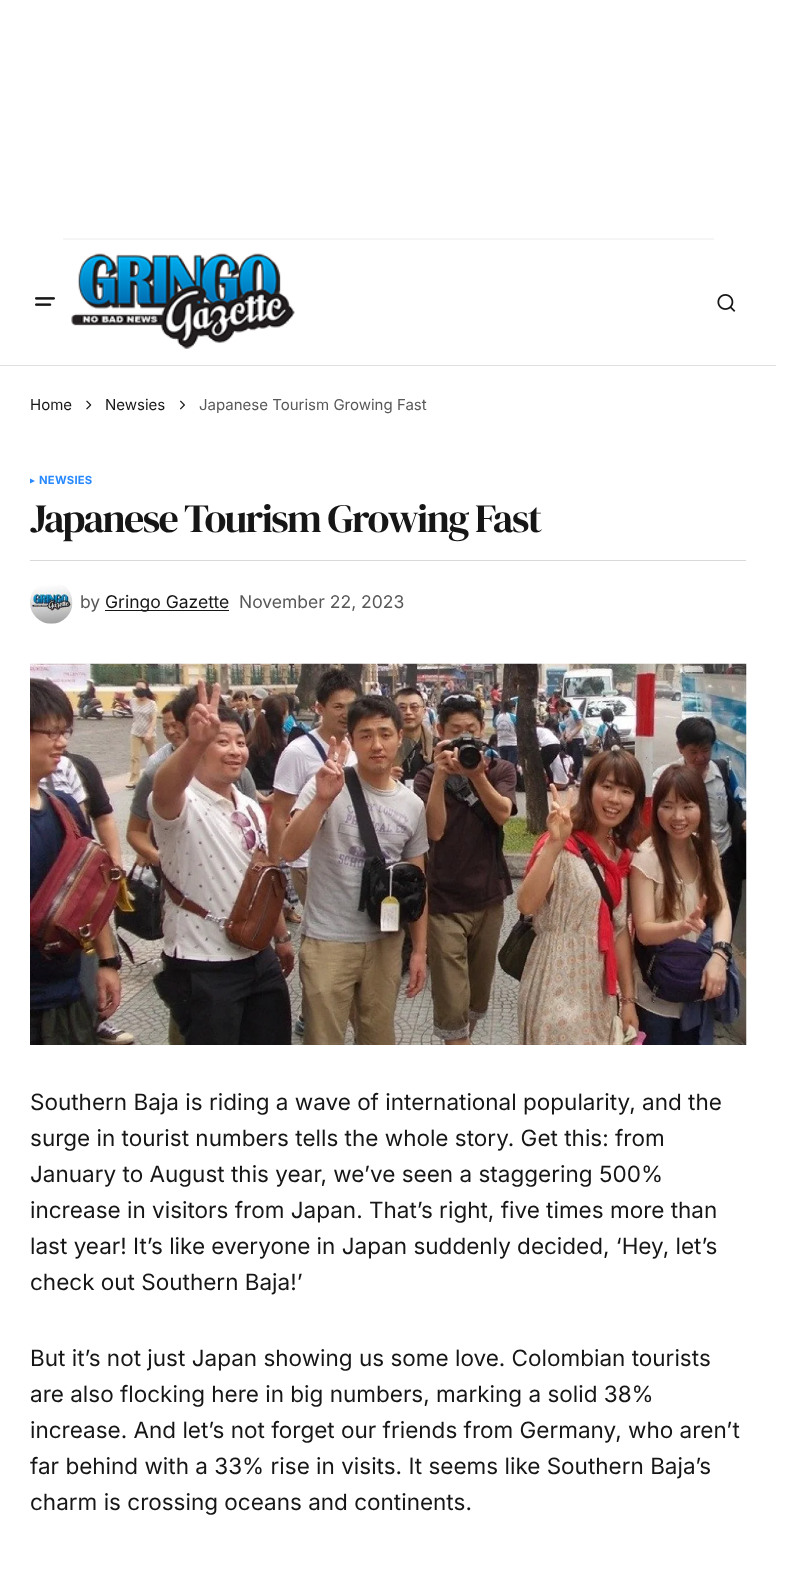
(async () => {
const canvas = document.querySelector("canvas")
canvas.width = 794
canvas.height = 1571
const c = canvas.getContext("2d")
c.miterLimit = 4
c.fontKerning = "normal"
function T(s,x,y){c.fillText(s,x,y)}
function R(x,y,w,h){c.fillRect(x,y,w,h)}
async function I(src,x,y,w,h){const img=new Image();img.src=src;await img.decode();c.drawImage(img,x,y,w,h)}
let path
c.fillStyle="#fff"
R(0,0,794,1571)
c.fillStyle="#f6f6f6"
R(63,238,651,2)
await I("1.png",35,297,20,9)
await I("2.png",71,253,224,96)
await I("3.png",717,294,19,18)
c.fillStyle="#e0e0e0"
R(0,365,776,1)
c.font="15px Inter"
c.fillStyle="#161616"
T("Home",30,410)
await I("4.png",86,400,6,10)
T("Newsies",105,410)
await I("5.png",180,400,5,10)
c.fillStyle="#585858"
T("Japanese Tourism Growing Fast",199,410)
c.fillStyle="#2889ff"
path = new Path2D("M35 481l-5 2.5v-5z")
c.fill(path)
c.letterSpacing="0.25px"
c.font="bold 11.25px Inter"
T("NEWSIES",39,484)
c.letterSpacing="-1.6px"
c.font="40px DM Serif Display"
c.fillStyle="#161616"
T("Japanese Tourism Growing Fast",30,532)
c.fillStyle="#d9d9d9"
R(30,560,716,1)
await I("6.png",30,585,43,39)
c.letterSpacing="0px"
c.font="17.5px Inter"
c.fillStyle="#585858"
T("by",80,608)
c.fillStyle="#161616"
R(105,610,124,1)
T("Gringo Gazette",105,608)
c.fillStyle="#585858"
T("November 22, 2023",239,608)
await I("7.png",30,663,717,382)
c.font="22.5px Inter"
c.fillStyle="#161616"
T("Southern Baja is riding a wave of international popularity, and the",30,1110)
T("surge in tourist numbers tells the whole story. Get this: from",30,1146)
T("January to August this year, we’ve seen a staggering 500%",30,1182)
T("increase in visitors from Japan. That’s right, five times more than",30,1218)
T("last year! It’s like everyone in Japan suddenly decided, ‘Hey, let’s",30,1254)
T("check out Southern Baja!’",30,1290)
T("But it’s not just Japan showing us some love. Colombian tourists",30,1366)
T("are also flocking here in big numbers, marking a solid 38%",30,1402)
T("increase. And let’s not forget our friends from Germany, who aren’t",30,1438)
T("far behind with a 33% rise in visits. It seems like Southern Baja’s",30,1474)
T("charm is crossing oceans and continents.",30,1510)
})()
